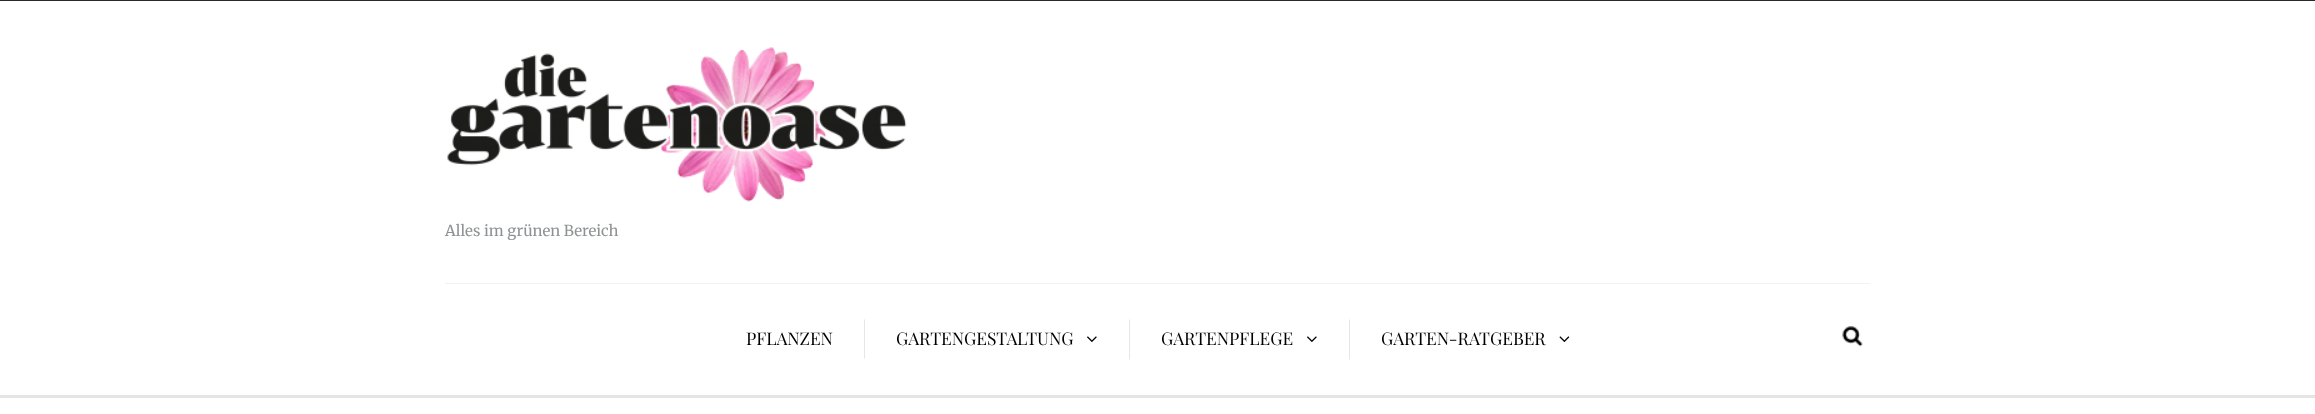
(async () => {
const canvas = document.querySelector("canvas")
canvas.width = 2315
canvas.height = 414
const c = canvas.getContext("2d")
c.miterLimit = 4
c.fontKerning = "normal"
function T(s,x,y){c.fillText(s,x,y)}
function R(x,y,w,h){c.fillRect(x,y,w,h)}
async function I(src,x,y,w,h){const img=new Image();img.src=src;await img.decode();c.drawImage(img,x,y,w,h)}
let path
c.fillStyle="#fff"
R(0,0,2315,414)
c.fillStyle="#26292c"
R(0,0,2315,1)
await I("1.png",447,47,460,155)
c.font="15px Merriweather"
c.fillStyle="#8f9294"
T("Alles im grünen Bereich",445,236)
c.fillStyle="#f2f2f2"
R(445,283,1425,1)
c.fillStyle="#e6e6e6"
path = new Path2D("M865 319v40l-1-1v-38z")
c.fill(path)
c.font="17.5px Playfair Display"
c.fillStyle="#000"
T("PFLANZEN",746,345)
c.fillStyle="#e6e6e6"
path = new Path2D("M1130 319v41l-1-1v-39z")
c.fill(path)
c.fillStyle="#000"
T("GARTENGESTALTUNG",896,345)
await I("2.png",1087,336,10,6)
c.fillStyle="#e6e6e6"
path = new Path2D("M1350 319v41l-1-1v-39z")
c.fill(path)
c.fillStyle="#000"
T("GARTENPFLEGE",1161,345)
await I("2.png",1307,336,10,6)
T("GARTEN-RATGEBER",1381,345)
await I("3.png",1559,336,11,6)
await I("4.png",1842,326,21,21)
c.fillStyle="#e6e3e3"
R(0,395,2315,3)
})()
